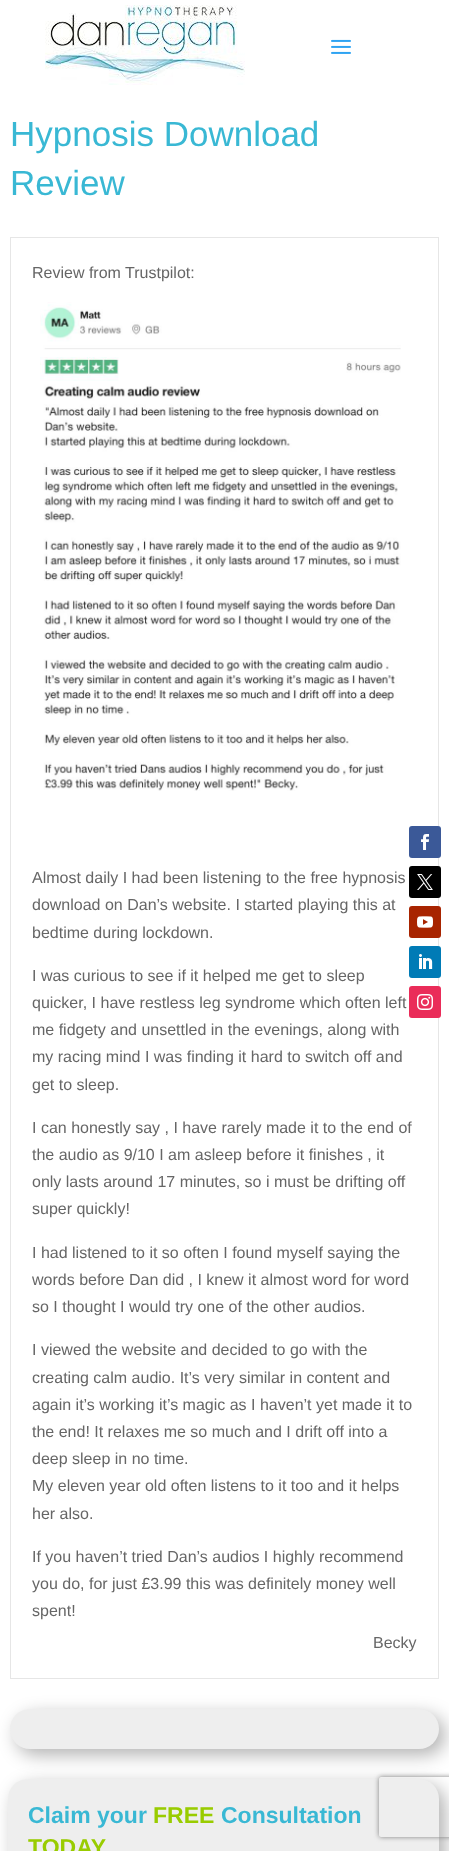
(async () => {
const canvas = document.querySelector("canvas")
canvas.width = 449
canvas.height = 1851
const c = canvas.getContext("2d")
c.miterLimit = 4
c.fontKerning = "normal"
function T(s,x,y){c.fillText(s,x,y)}
function R(x,y,w,h){c.fillRect(x,y,w,h)}
function Q(x,y,w,h,r){c.beginPath();c.roundRect(x,y,w,h,r);c.fill()}
async function I(src,x,y,w,h){const img=new Image();img.src=src;await img.decode();c.drawImage(img,x,y,w,h)}
let path
c.fillStyle="#fff"
R(0,0,449,1851)
await I("1.png",45,5,200,80)
await I("2.png",331,39,20,15)
c.strokeStyle="#e6e6e6"
c.strokeRect(10.5,237.5,428,1441)
c.fillStyle="#3b5998"
Q(409,826,32,32,3)
await I("3.png",421,834,8,16)
c.fillStyle="#000"
Q(409,866,32,32,3)
await I("4.png",417,874,16,16)
c.fillStyle="#a82400"
Q(409,906,32,32,3)
await I("5.png",417,916,16,12)
c.fillStyle="#007bb6"
Q(409,946,32,32,3)
await I("6.png",419,954,14,15)
c.fillStyle="#ea2c59"
Q(409,986,32,32,3)
await I("7.png",417,994,16,16)
c.font="35px Liberation Sans"
c.fillStyle="#39b8d4"
T("Hypnosis Download",10,146)
T("Review",10,195)
c.font="16px Liberation Sans"
c.fillStyle="#666"
T("Review from Trustpilot:",32,278)
await I("8.png",40,302,361,489)
T("Almost daily I had been listening to the free hypnosis",32,883)
T("download on Dan’s website. I started playing this at",32,910)
T("bedtime during lockdown.",32,938)
T("I was curious to see if it helped me get to sleep",32,981)
T("quicker, I have restless leg syndrome which often left",32,1008)
T("me fidgety and unsettled in the evenings, along with",32,1035)
T("my racing mind I was finding it hard to switch off and",32,1062)
T("get to sleep.",32,1090)
T("I can honestly say , I have rarely made it to the end of",32,1133)
T("the audio as 9/10 I am asleep before it finishes , it",32,1160)
T("only lasts around 17 minutes, so i must be drifting off",32,1187)
T("super quickly!",32,1214)
T("I had listened to it so often I found myself saying the",32,1258)
T("words before Dan did , I knew it almost word for word",32,1285)
T("so I thought I would try one of the other audios.",32,1312)
T("I viewed the website and decided to go with the",32,1355)
T("creating calm audio. It’s very similar in content and",32,1383)
T("again it’s working it’s magic as I haven’t yet made it to",32,1410)
T("the end! It relaxes me so much and I drift off into a",32,1437)
T("deep sleep in no time.",32,1464)
T("My eleven year old often listens to it too and it helps",32,1491)
T("her also.",32,1519)
T("If you haven’t tried Dan’s audios I highly recommend",32,1562)
T("you do, for just £3.99 this was definitely money well",32,1589)
T("spent!",32,1616)
T("Becky",373,1648)
c.fillStyle="#0000004d"
c.filter="blur(9px)"
c.beginPath()
c.roundRect(16,1715,429,40,20)
c.fill()
c.filter="none"
c.fillStyle="#eee"
Q(10,1709,429,40,20)
c.fillStyle="#0000004d"
c.filter="blur(9px)"
c.beginPath()
c.roundRect(14,1785,431,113,20)
c.fill()
c.filter="none"
c.fillStyle="#eee"
Q(8,1779,431,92,20)
c.font="bold 23px Liberation Sans"
c.fillStyle="#39b8d4"
T("Claim your",28,1823)
c.fillStyle="#9c0"
T("FREE",153,1823)
c.fillStyle="#39b8d4"
T("Consultation",221,1823)
c.fillStyle="#9c0"
T("TODAY",28,1855)
c.save()
path = new Path2D("M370 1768h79v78h-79zm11 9h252c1 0 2 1 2 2v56c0 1-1 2-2 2h-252c-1 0-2-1-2-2v-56c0-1 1-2 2-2z")
c.clip(path,"evenodd")
c.fillStyle="#808080"
c.filter="blur(2.5px)"
c.beginPath()
c.roundRect(379,1777,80,60,2)
c.fill()
c.filter="none"
c.restore()
})()
